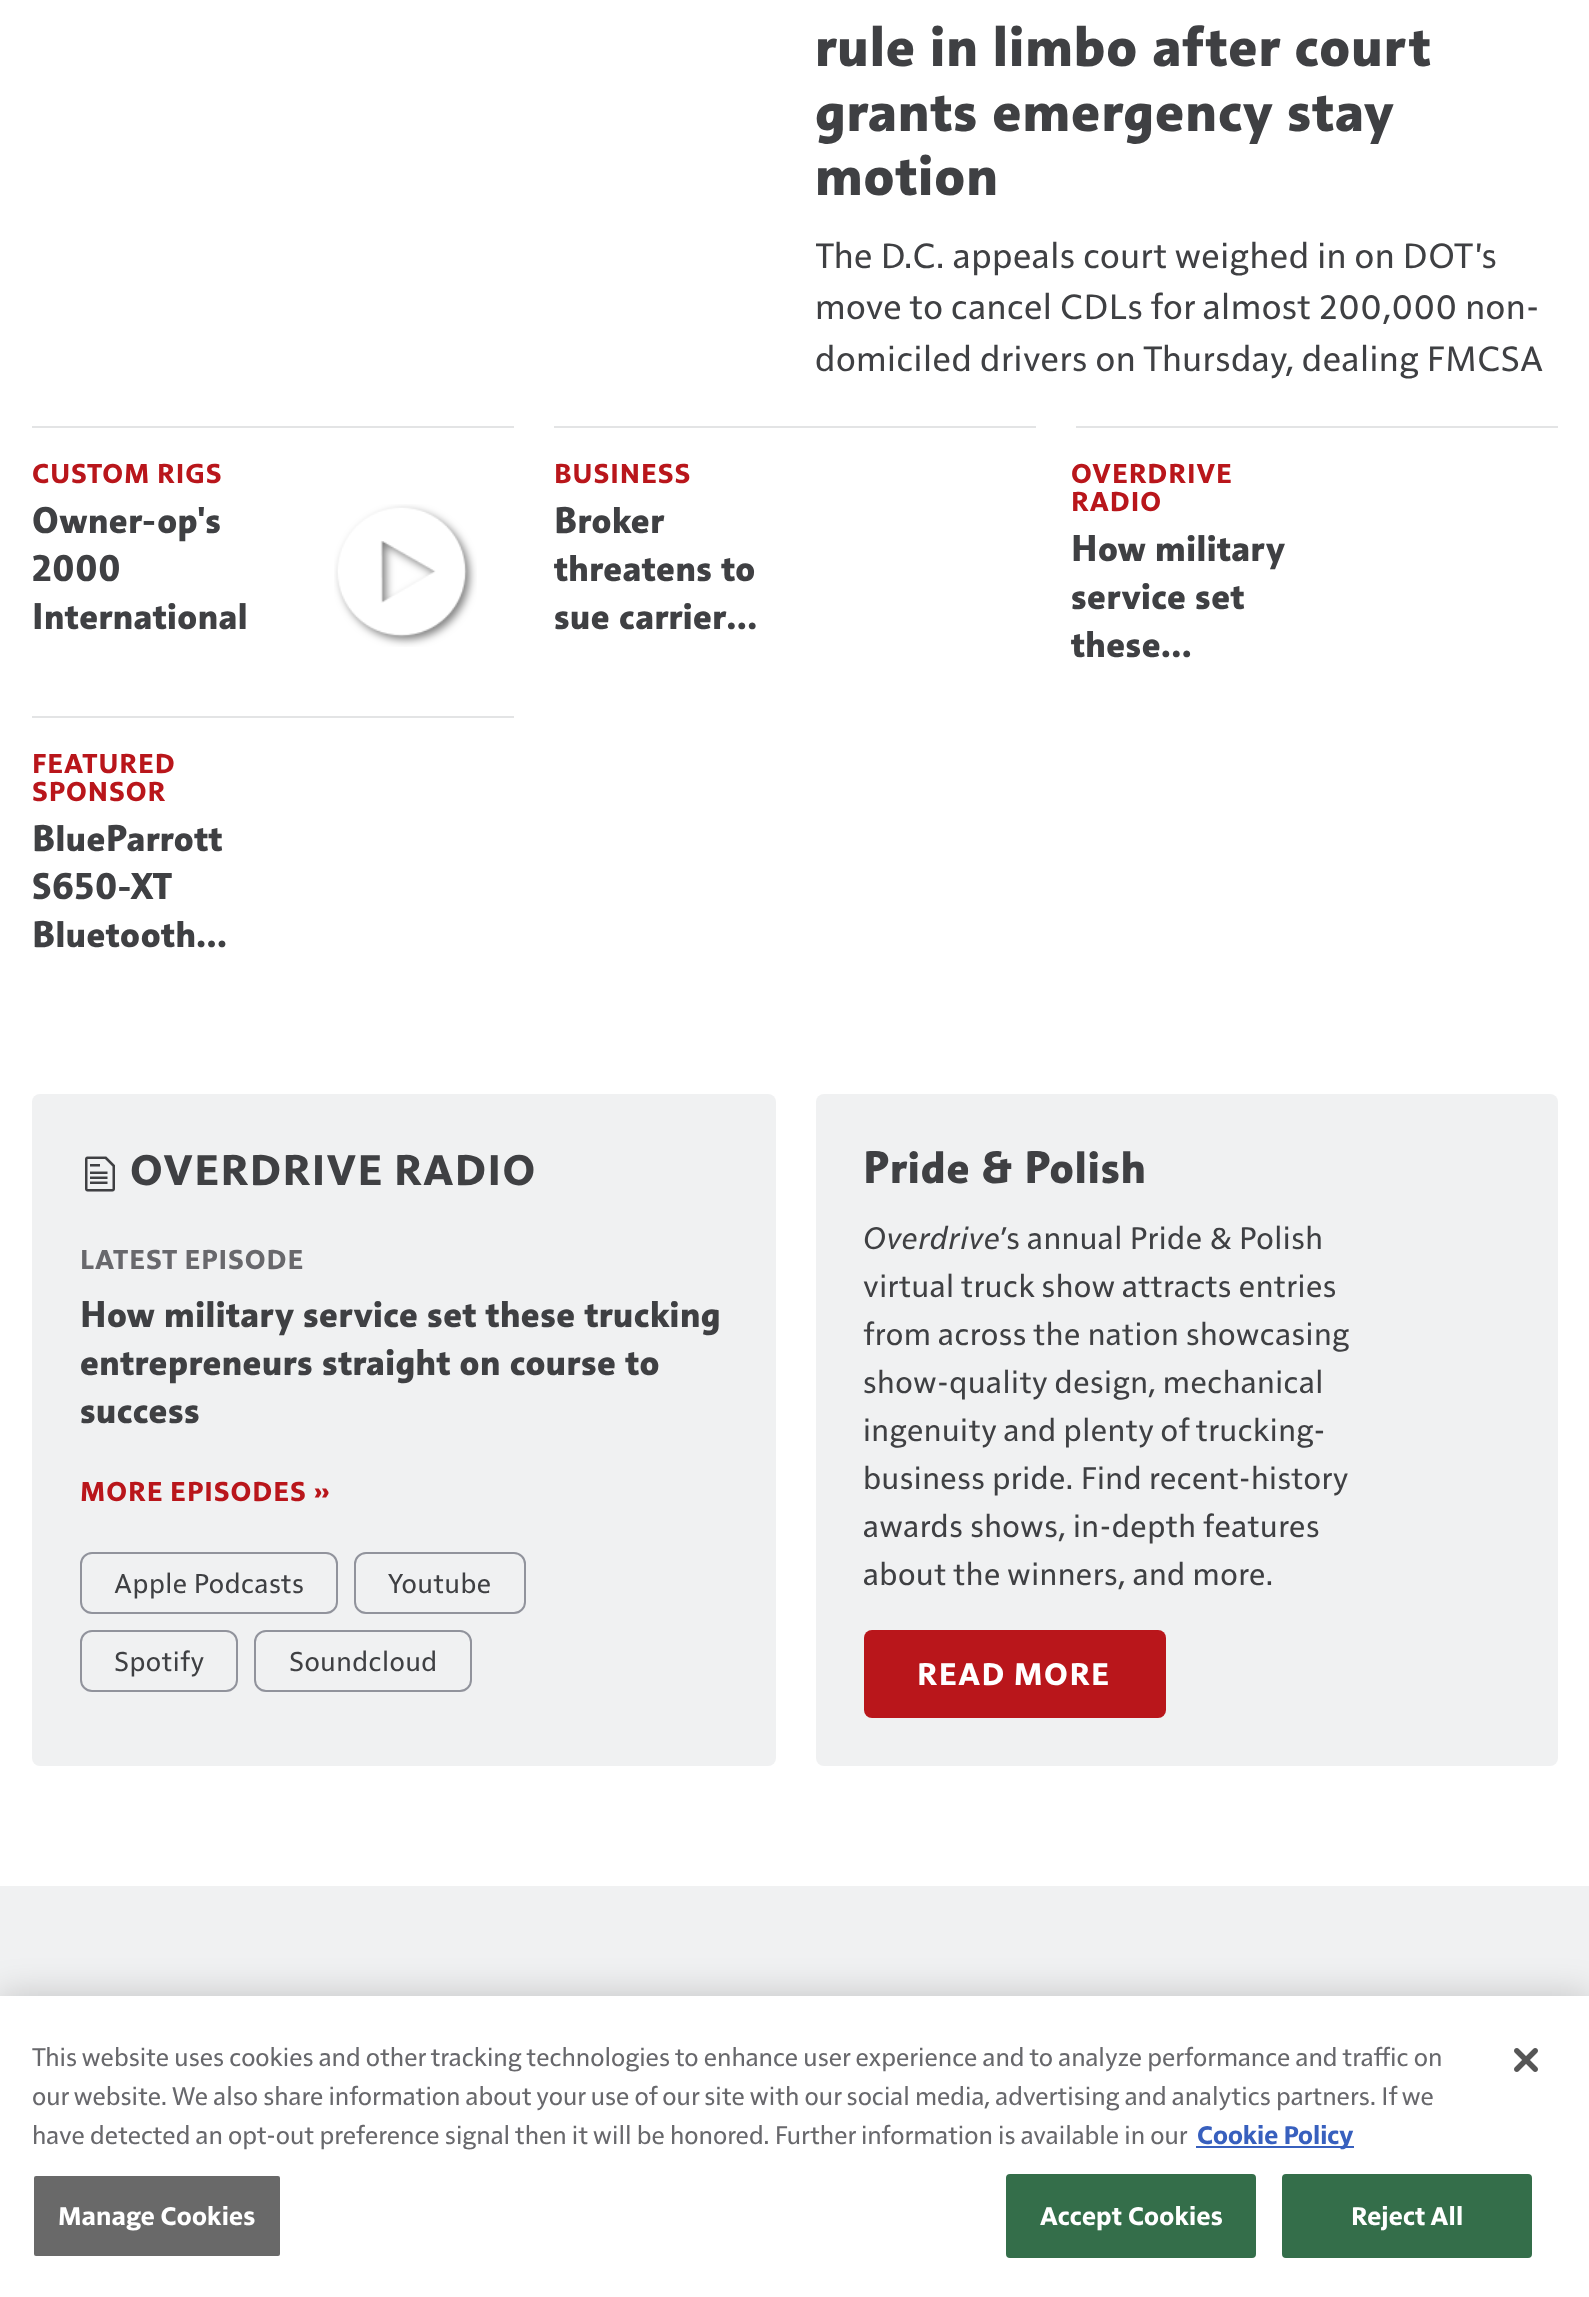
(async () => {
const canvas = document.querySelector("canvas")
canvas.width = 1589
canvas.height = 2297
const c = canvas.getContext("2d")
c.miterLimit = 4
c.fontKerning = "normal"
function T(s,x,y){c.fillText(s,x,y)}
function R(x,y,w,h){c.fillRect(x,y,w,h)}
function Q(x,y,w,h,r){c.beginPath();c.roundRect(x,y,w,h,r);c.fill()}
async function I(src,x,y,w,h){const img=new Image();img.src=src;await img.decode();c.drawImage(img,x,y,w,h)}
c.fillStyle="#fff"
R(0,0,1589,2297)
c.letterSpacing="1px"
c.font="bold 56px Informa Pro"
c.fillStyle="#3f4043"
T("rule in limbo after court",815,66)
T("grants emergency stay",815,131)
T("motion",815,195)
c.save()
c.beginPath()
c.rect(816,228,742,154)
c.clip()
c.letterSpacing="0.5px"
c.font="36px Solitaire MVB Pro"
T("The D.C. appeals court weighed in on DOT's",815,268)
c.restore()
c.letterSpacing="0.5px"
c.font="36px Solitaire MVB Pro"
T("move to cancel CDLs for almost 200,000 non-",815,319)
T("domiciled drivers on Thursday, dealing FMCSA",815,371)
c.fillStyle="#e3e4e5"
R(32,426,482,2)
c.letterSpacing="1px"
c.font="bold 28px Solitaire MVB Pro"
c.fillStyle="#b9161b"
T("CUSTOM RIGS",32,483)
c.letterSpacing="0.5px"
c.font="bold 36px Informa Pro"
c.fillStyle="#3f4043"
T("Owner-op's",32,533)
T("2000",32,581)
T("International",32,629)
await I("1.png",334,504,143,143)
c.fillStyle="#e3e4e5"
R(554,426,482,2)
c.letterSpacing="1px"
c.font="bold 28px Solitaire MVB Pro"
c.fillStyle="#b9161b"
T("BUSINESS",554,483)
c.letterSpacing="0.5px"
c.font="bold 36px Informa Pro"
c.fillStyle="#3f4043"
T("Broker",554,533)
T("threatens to",554,581)
T("sue carrier…",554,629)
c.fillStyle="#e3e4e5"
R(1076,426,482,2)
c.letterSpacing="1px"
c.font="bold 28px Solitaire MVB Pro"
c.fillStyle="#b9161b"
T("OVERDRIVE",1071,483)
T("RADIO",1071,511)
c.letterSpacing="0.5px"
c.font="bold 36px Informa Pro"
c.fillStyle="#3f4043"
T("How military",1071,561)
T("service set",1071,609)
T("these…",1071,657)
c.fillStyle="#e3e4e5"
R(32,716,482,2)
c.letterSpacing="1px"
c.font="bold 28px Solitaire MVB Pro"
c.fillStyle="#b9161b"
T("FEATURED",32,773)
T("SPONSOR",32,801)
c.letterSpacing="0.5px"
c.font="bold 36px Informa Pro"
c.fillStyle="#3f4043"
T("BlueParrott",32,851)
T("S650-XT",32,899)
T("Bluetooth…",32,947)
c.fillStyle="#f0f1f2"
Q(32,1094,744,672,8)
await I("2.png",85,1156,30,36)
c.letterSpacing="1.5px"
c.font="bold 44px Solitaire MVB Pro"
c.fillStyle="#3f4043"
T("OVERDRIVE RADIO",130,1185)
c.letterSpacing="1px"
c.font="bold 28px Solitaire MVB Pro"
c.fillStyle="#68686c"
T("LATEST EPISODE",80,1269)
c.letterSpacing="0.5px"
c.font="bold 36px Informa Pro"
c.fillStyle="#3f4043"
T("How military service set these trucking",80,1327)
T("entrepreneurs straight on course to",80,1375)
T("success",80,1423)
c.letterSpacing="1px"
c.font="bold 28px Solitaire MVB Pro"
c.fillStyle="#b9161b"
T("MORE EPISODES »",80,1501)
c.beginPath()
c.roundRect(81,1553,256,60,11)
c.strokeStyle="#91939c"
c.lineWidth=2
c.stroke()
c.letterSpacing="0.5px"
c.font="28px Solitaire MVB Pro"
c.fillStyle="#3f4043"
T("Apple Podcasts",114,1593)
c.beginPath()
c.roundRect(355,1553,170,60,11)
c.stroke()
T("Youtube",388,1593)
c.beginPath()
c.roundRect(81,1631,156,60,11)
c.stroke()
T("Spotify",114,1671)
c.beginPath()
c.roundRect(255,1631,216,60,11)
c.stroke()
T("Soundcloud",289,1671)
c.fillStyle="#f0f1f2"
Q(816,1094,742,672,8)
c.letterSpacing="1px"
c.font="bold 44px Informa Pro"
c.fillStyle="#3f4043"
T("Pride & Polish",863,1183)
c.letterSpacing="0.5px"
c.font="italic 32px Solitaire MVB Pro"
T("Overdrive",863,1249)
c.font="32px Solitaire MVB Pro"
T("’s annual Pride & Polish",1000,1249)
T("virtual truck show attracts entries",863,1297)
T("from across the nation showcasing",863,1345)
T("show-quality design, mechanical",863,1393)
T("ingenuity and plenty of trucking-",863,1441)
T("business pride. Find recent-history",863,1489)
T("awards shows, in-depth features",863,1537)
T("about the winners, and more.",863,1585)
c.fillStyle="#b9161b"
Q(864,1630,302,88,8)
c.letterSpacing="1.5px"
c.font="bold 32px Solitaire MVB Pro"
c.fillStyle="#fff"
T("READ MORE",917,1685)
c.fillStyle="#f0f1f2"
R(0,1886,1589,110)
c.fillStyle="#00000033"
c.filter="blur(18px)"
c.beginPath()
c.rect(0,1996,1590,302)
c.fill()
c.filter="none"
c.fillStyle="#fff"
R(0,1996,1589,301)
c.letterSpacing="0px"
c.font="26.02px Solitaire MVB Pro"
c.fillStyle="#68686c"
T("This website uses cookies and other tracking technologies to enhance user experience and to analyze performance and traffic on",32,2066)
T("our website. We also share information about your use of our site with our social media, advertising and analytics partners. If we",32,2105)
T("have detected an opt-out preference signal then it will be honored. Further information is available in our",32,2144)
c.fillStyle="#3860be"
R(1196,2146,158,2)
c.font="bold 26.02px Solitaire MVB Pro"
T("Cookie Policy",1197,2144)
c.fillStyle="#696969"
c.beginPath()
c.roundRect(33,2175,248,82,3)
c.fill()
c.strokeStyle="#fff"
c.stroke()
c.letterSpacing="0.25px"
c.fillStyle="#fff"
T("Manage Cookies",58,2225)
c.fillStyle="#346e4a"
c.beginPath()
c.roundRect(1007,2175,248,82,3)
c.fill()
c.strokeStyle="#346e4a"
c.stroke()
c.fillStyle="#fff"
T("Accept Cookies",1040,2225)
c.fillStyle="#346e4a"
c.beginPath()
c.roundRect(1283,2175,248,82,3)
c.fill()
c.stroke()
c.fillStyle="#fff"
T("Reject All",1351,2225)
await I("3.png",1514,2048,24,24)
})()
